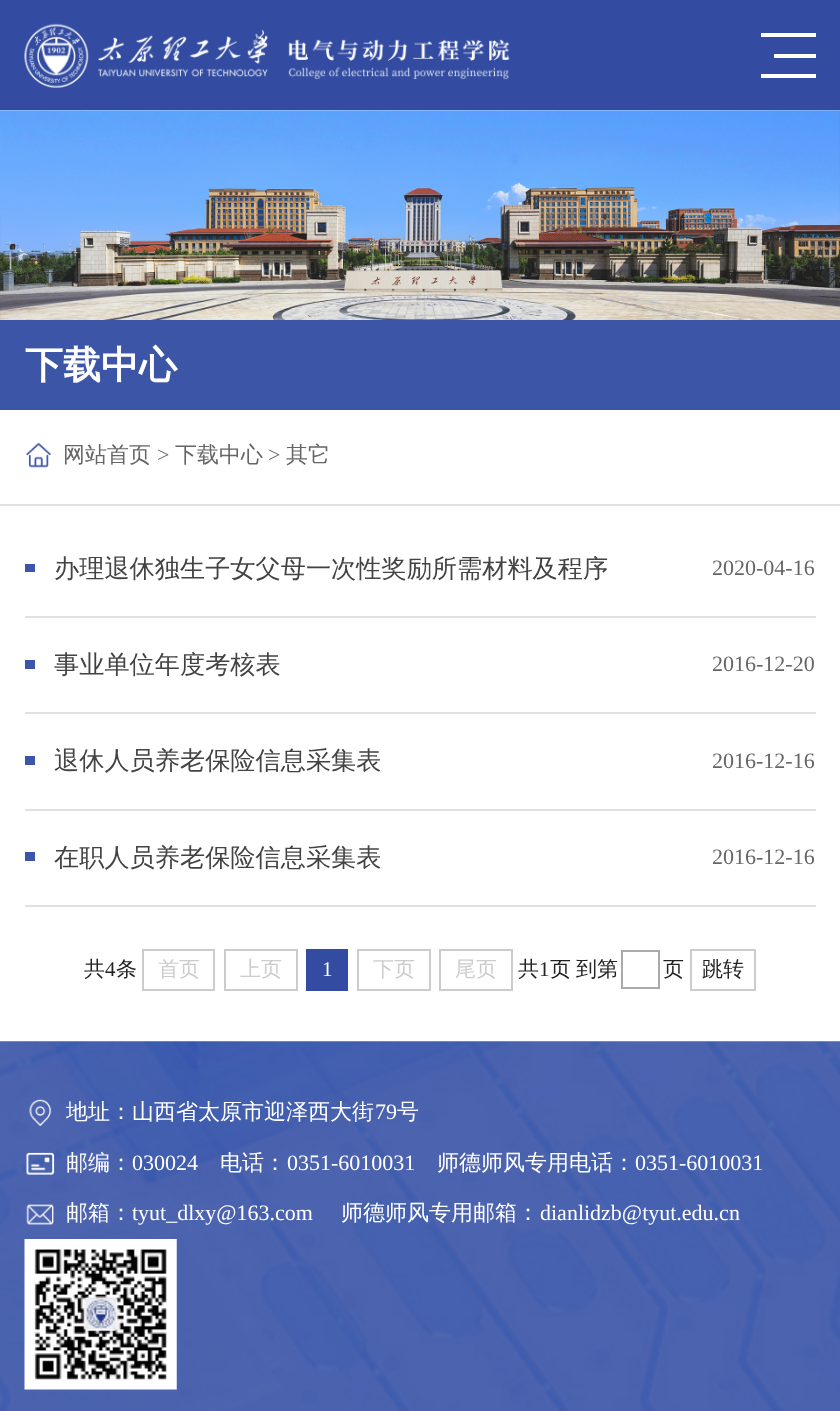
(async () => {
const canvas = document.querySelector("canvas")
canvas.width = 840
canvas.height = 1411
const c = canvas.getContext("2d")
c.miterLimit = 4
c.fontKerning = "normal"
function T(s,x,y){c.fillText(s,x,y)}
function R(x,y,w,h){c.fillRect(x,y,w,h)}
async function I(src,x,y,w,h){const img=new Image();img.src=src;await img.decode();c.drawImage(img,x,y,w,h)}
c.fillStyle="#fff"
R(0,0,840,1411)
c.fillStyle="#334ca1"
R(0,0,840,110)
await I("1.png",24,23,486,65)
c.fillStyle="#fff"
R(761,33,55,4)
R(774,54,42,4)
R(761,74,55,4)
await I("2.png",0,110,840,210)
c.fillStyle="#3d55a7"
R(0,320,840,90)
c.font="bold 38px WenQuanYi Zen Hei"
c.fillStyle="#fff"
T("下载中心",25,378)
c.fillStyle="#e1e1e1"
R(0,504,840,2)
await I("3.png",26,442,25,26)
c.font="500 22px WenQuanYi Zen Hei"
c.fillStyle="#666"
T("网站首页",63,462)
c.font="22px Liberation Serif"
T(">",157,462)
c.font="500 22px WenQuanYi Zen Hei"
T("下载中心",175,462)
c.font="22px Liberation Serif"
T(">",268,462)
c.font="500 22px WenQuanYi Zen Hei"
T("其它",286,462)
c.fillStyle="#e1e1e1"
R(25,616,791,2)
c.fillStyle="#3d55a7"
R(25,564,10,8)
c.font="500 25.2px WenQuanYi Zen Hei"
c.fillStyle="#434343"
T("办理退休独生子女父母一次性奖励所需材料及程序",54,577)
c.font="22px Liberation Serif"
c.fillStyle="#666"
T("2020-04-16",712,575)
c.fillStyle="#e1e1e1"
R(25,712,791,2)
c.fillStyle="#3d55a7"
R(25,660,10,9)
c.font="500 25.2px WenQuanYi Zen Hei"
c.fillStyle="#434343"
T("事业单位年度考核表",54,673)
c.font="22px Liberation Serif"
c.fillStyle="#666"
T("2016-12-20",712,671)
c.fillStyle="#e1e1e1"
R(25,809,791,2)
c.fillStyle="#3d55a7"
R(25,756,10,9)
c.font="500 25.2px WenQuanYi Zen Hei"
c.fillStyle="#434343"
T("退休人员养老保险信息采集表",54,769)
c.font="22px Liberation Serif"
c.fillStyle="#666"
T("2016-12-16",712,768)
c.fillStyle="#e1e1e1"
R(25,905,791,2)
c.fillStyle="#3d55a7"
R(25,852,10,9)
c.font="500 25.2px WenQuanYi Zen Hei"
c.fillStyle="#434343"
T("在职人员养老保险信息采集表",54,866)
c.font="22px Liberation Serif"
c.fillStyle="#666"
T("2016-12-16",712,864)
c.font="500 21px WenQuanYi Zen Hei"
c.fillStyle="#222"
T("共",84,976)
c.font="21px Liberation Serif"
T("4",105,976)
c.font="500 21px WenQuanYi Zen Hei"
T("条",116,976)
c.strokeStyle="#ccc"
c.lineWidth=2
c.strokeRect(143,950,71,40)
c.fillStyle="#ccc"
T("首页",158,976)
c.strokeRect(225,950,72,40)
T("上页",240,976)
c.fillStyle="#334ca1"
R(306,949,42,42)
c.font="21px Liberation Serif"
c.fillStyle="#fff"
T("1",322,976)
c.strokeRect(358,950,72,40)
c.font="500 21px WenQuanYi Zen Hei"
c.fillStyle="#ccc"
T("下页",373,976)
c.strokeRect(440,950,72,40)
T("尾页",455,976)
c.fillStyle="#222"
T("共",518,976)
c.font="21px Liberation Serif"
T("1",539,976)
c.font="500 21px WenQuanYi Zen Hei"
T("页",550,976)
T("到第",576,976)
c.strokeStyle="#aaa"
c.strokeRect(622,951,37,37)
T("页",663,976)
c.strokeStyle="#ccc"
c.strokeRect(691,950,64,40)
T("跳转",702,976)
await I("4.png",0,1041,840,370)
await I("5.png",29,1099,23,28)
c.font="500 22px WenQuanYi Zen Hei"
c.fillStyle="#fff"
T("地址：山西省太原市迎泽西大街",66,1119)
c.font="22px Liberation Serif"
T("79",375,1119)
c.font="500 22px WenQuanYi Zen Hei"
T("号",397,1119)
await I("6.png",26,1152,29,23)
T("邮编：",66,1170)
c.font="22px Liberation Serif"
T("030024",132,1170)
c.font="500 22px WenQuanYi Zen Hei"
T("电话：",220,1170)
c.font="22px Liberation Serif"
T("0351-6010031",287,1170)
c.font="500 22px WenQuanYi Zen Hei"
T("师德师风专用电话：",437,1170)
c.font="22px Liberation Serif"
T("0351-6010031",635,1170)
await I("7.png",26,1204,28,21)
c.font="500 22px WenQuanYi Zen Hei"
T("邮箱：",66,1220)
c.font="22px Liberation Serif"
T("tyut_dlxy@163.com",132,1220)
c.font="500 22px WenQuanYi Zen Hei"
T("师德师风专用邮箱：",341,1220)
c.font="22px Liberation Serif"
T("dianlidzb@tyut.edu.cn",540,1220)
await I("8.png",24,1239,153,151)
})()
